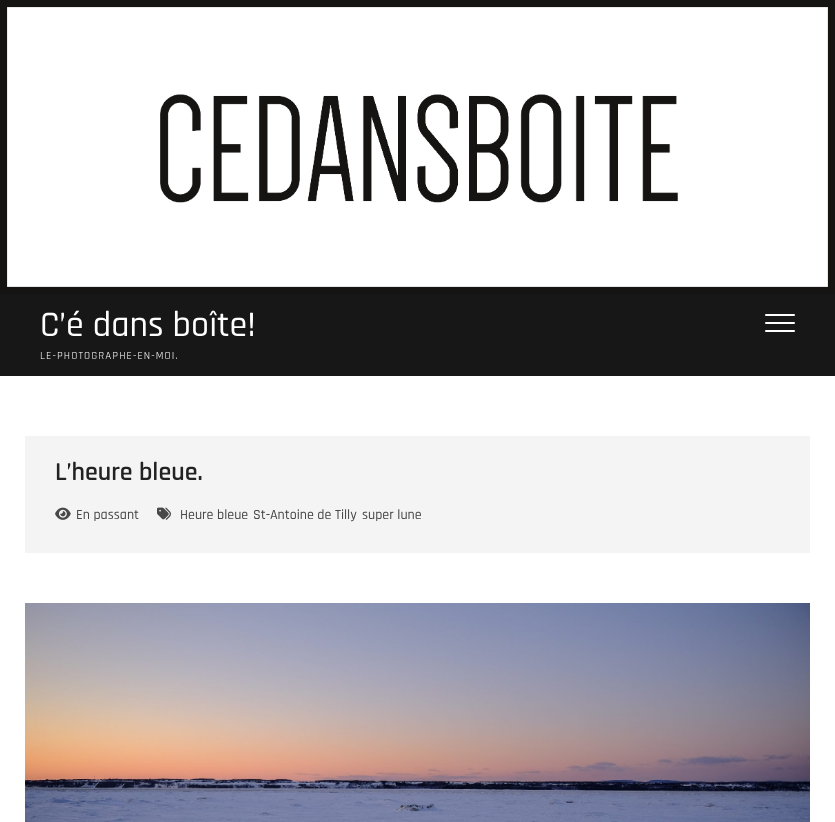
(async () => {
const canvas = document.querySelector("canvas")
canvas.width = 835
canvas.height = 822
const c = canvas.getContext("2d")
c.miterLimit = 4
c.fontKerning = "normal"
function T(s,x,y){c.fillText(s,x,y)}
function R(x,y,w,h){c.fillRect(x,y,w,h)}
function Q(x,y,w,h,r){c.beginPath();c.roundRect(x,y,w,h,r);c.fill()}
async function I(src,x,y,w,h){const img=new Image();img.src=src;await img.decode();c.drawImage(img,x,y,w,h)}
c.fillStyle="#fff"
R(0,0,835,822)
await I("1.png",0,0,835,294)
c.fillStyle="#171717"
R(0,294,835,82)
c.font="500 36px Rajdhani"
c.fillStyle="#fff"
T("C’é dans boîte!",40,336)
c.letterSpacing="1.1px"
c.font="11px Rajdhani"
T("LE-PHOTOGRAPHE-EN-MOI.",40,359)
Q(765,322,30,2,1)
Q(765,314,30,2,1)
Q(765,330,30,2,1)
c.fillStyle="#f4f4f4"
R(25,436,785,117)
c.letterSpacing="0px"
c.font="600 26px Rajdhani"
c.fillStyle="#222"
T("L’heure bleue.",55,480)
await I("2.png",55,507,16,13)
c.font="500 14px Rajdhani"
c.fillStyle="#484848"
T("En passant",76,519)
await I("3.png",157,507,14,13)
T("Heure bleue",180,519)
T("St-Antoine de Tilly",253,519)
T("super lune",362,519)
await I("4.png",25,603,785,219)
})()
